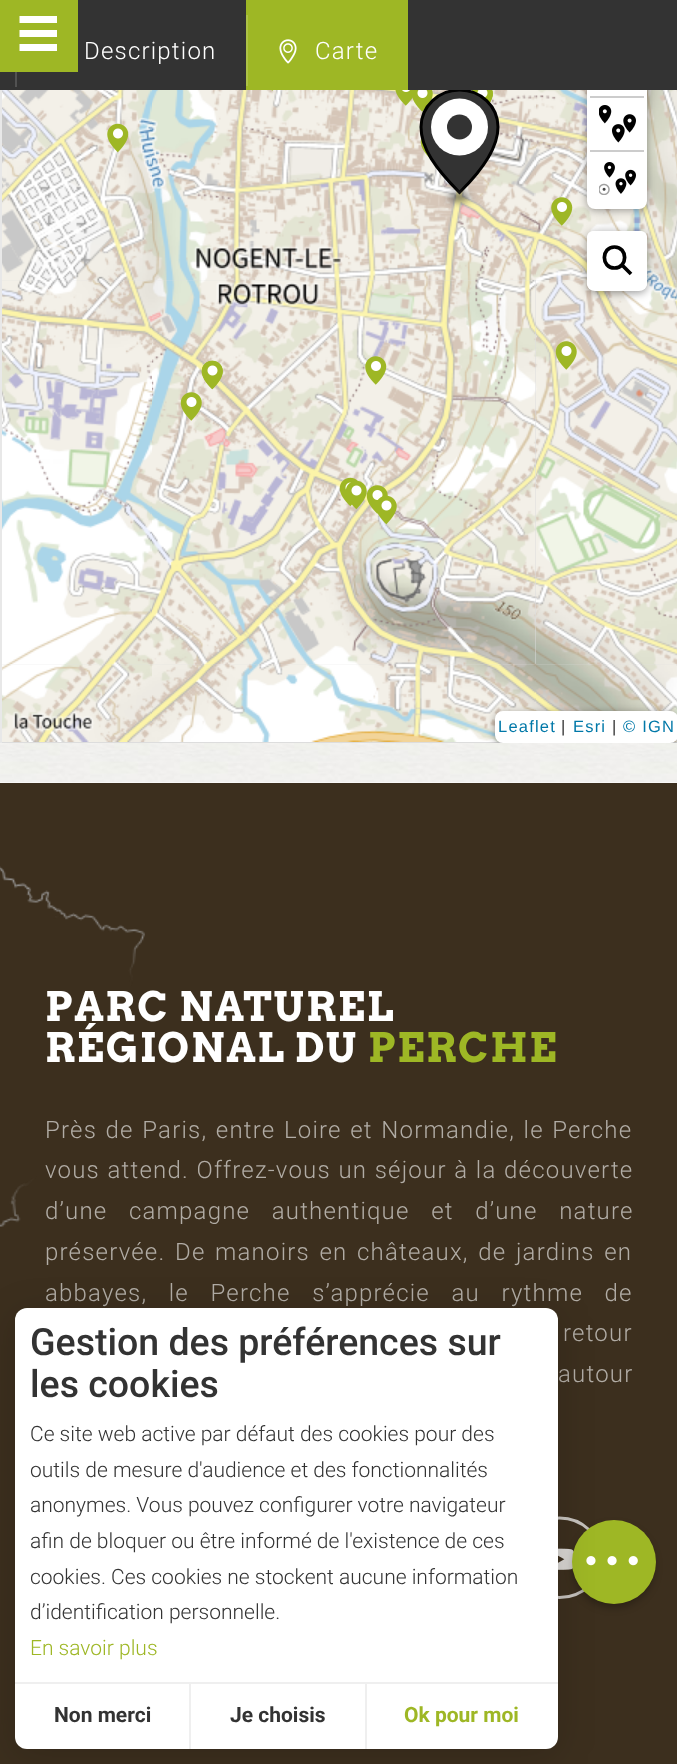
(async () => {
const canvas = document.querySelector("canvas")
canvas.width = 677
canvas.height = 1764
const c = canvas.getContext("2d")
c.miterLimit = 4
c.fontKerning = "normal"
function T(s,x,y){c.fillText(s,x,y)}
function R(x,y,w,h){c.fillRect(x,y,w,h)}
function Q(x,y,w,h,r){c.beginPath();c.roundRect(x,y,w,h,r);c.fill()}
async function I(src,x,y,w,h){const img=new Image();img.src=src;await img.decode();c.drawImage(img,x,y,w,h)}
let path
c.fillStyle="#fff"
R(0,0,677,1764)
await I("23.png",152,90,384,190)
await I("5.png",395,90,18,16)
await I("6.png",412,90,21,22)
await I("7.png",472,90,21,12)
await I("8.png",472,90,21,12)
await I("9.png",472,90,21,12)
await I("11.png",420,139,11,21)
c.fillStyle="#333"
path = new Path2D("M460 90c21 0 38 17 38 37c0 21-16 43-38 65c-25-23-39-44-39-65c0-20 17-37 39-37z")
c.fill(path)
path = new Path2D("M459.5 90c21.5 0 38.5 16.5 38.5 37c0 21-16 43.5-38.5 65.5c-24-24-38.5-44.5-38.5-65.5c0-20.5 17.5-37 38.5-37z")
c.strokeStyle="#000"
c.lineWidth=3
c.stroke(path)
await I("24.png",536,90,141,190)
c.fillStyle="#00000066"
c.filter="blur(4px)"
c.beginPath()
c.roundRect(587,42,60,168,8)
c.fill()
c.filter="none"
c.fillStyle="#fff"
Q(587,41,60,168,8)
c.fillStyle="#333"
R(0,0,677,90)
c.fillStyle="#9eb725"
R(0,0,78,72)
c.fillStyle="#fff"
path = new Path2D("M19.5 16h37.5v7h-37.5zm0 14h37.5v7h-37.5zm0 14h37.5v7h-37.5z")
c.fill(path)
await I("1.png",0,743,677,40)
c.letterSpacing="1.2px"
c.font="300 24px Roboto"
T("Description",84,59)
c.fillStyle="#525252"
R(15,72,2,15)
c.fillStyle="#9eb725"
R(246,0,162,90)
c.fillStyle="#adc246"
R(246,15,2,71)
await I("2.png",279,39,18,25)
c.fillStyle="#fff"
T("Carte",315,59)
c.fillStyle="#3c2f1e"
R(0,783,677,981)
path = new Path2D("M559.5 1518c23 0 42 18 42 40c0 21.5-19 39.5-42 39.5c-23 0-42-18-42-39.5c0-22 19-40 42-40z")
c.strokeStyle="#c5c1bc"
c.stroke(path)
await I("34.png",558,1548,16,22)
c.fillStyle="#0000004d"
c.filter="blur(4px)"
c.beginPath()
c.roundRect(573,1526,81,81,40.5)
c.fill()
c.filter="none"
c.fillStyle="#9eb725"
c.beginPath()
c.arc(614,1562,42,0,7)
c.fill()
await I("3.png",586,1556,52,10)
c.fillStyle="#e8e8e8"
R(0,90,2,653)
c.fillStyle="#ddd"
R(2,280,675,463)
await I("4.png",271,90,2,1)
c.fillStyle="#fff"
c.beginPath()
c.arc(459.5,127,28.5,0,7)
c.fill()
c.fillStyle="#333"
c.beginPath()
c.arc(459.5,127,12.5,0,7)
c.fill()
c.filter="blur(4.5px)"
c.beginPath()
c.rect(450,194,18,6)
c.fill()
c.filter="none"
await I("26.png",151,279,385,385)
await I("22.png",2,90,150,190)
await I("10.png",107,123,22,30)
await I("12.png",551,197,22,29)
await I("13.png",201,360,22,30)
await I("14.png",365,356,22,29)
await I("27.png",536,279,141,385)
await I("15.png",555,341,22,29)
await I("16.png",201,360,22,30)
await I("17.png",180,392,22,29)
await I("18.png",339,477,20,30)
await I("19.png",346,480,21,30)
await I("20.png",366,485,22,29)
await I("21.png",377,495,20,30)
await I("25.png",2,279,150,385)
await I("28.png",2,663,150,79)
await I("29.png",152,663,384,79)
await I("30.png",536,663,141,79)
c.fillStyle="#ccc"
R(590,96,54,2)
await I("31.png",599,105,37,38)
R(590,150,54,2)
await I("32.png",599,162,37,33)
c.fillStyle="#00000066"
c.filter="blur(4px)"
c.beginPath()
c.roundRect(587,233,60,60,8)
c.fill()
c.filter="none"
c.fillStyle="#fff"
Q(587,231,60,60,8)
Q(587,231,60,59,6)
path = new Path2D("M614.5 268c-13.5 0-13.5-21 0-21c13.5 0 13.5 21 0 21zm8.5-2l8 8z")
c.strokeStyle="#000"
c.lineWidth=3.7
c.stroke(path)
c.save()
c.beginPath()
c.rect(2,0,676,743)
c.clip()
c.fillStyle="#00000066"
c.filter="blur(4px)"
c.beginPath()
c.roundRect(495,713,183,31,8)
c.fill()
c.filter="none"
c.restore()
Q(495,711,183,32,8)
c.font="16.5px Liberation Sans"
c.fillStyle="#0078a8"
T("Leaflet",498,732)
c.fillStyle="#333"
T("|",561,732)
c.fillStyle="#0078a8"
T("Esri",573,732)
c.fillStyle="#333"
T("|",612,732)
c.fillStyle="#0078a8"
T("© IGN",623,732)
c.letterSpacing="1.6px"
c.font="bold 40.5px Arvo"
c.fillStyle="#fff"
T("PARC NATUREL",45,1021)
T("RÉGIONAL DU",45,1062)
c.letterSpacing="1.2px"
c.wordSpacing="1.5px"
c.font="300 24px Roboto"
c.fillStyle="#b1aca5"
T("Près de Paris, entre Loire et Normandie, le Perche",45,1138)
c.wordSpacing="0.5px"
T("vous attend. Offrez-vous un séjour à la découverte",45,1178)
c.wordSpacing="14.5px"
T("d’une campagne authentique et d’une nature",45,1219)
await I("33.png",0,866,145,361)
c.letterSpacing="1.6px"
c.wordSpacing="0px"
c.font="bold 40.5px Arvo"
c.fillStyle="#9eb725"
T("PERCHE",368,1062)
c.letterSpacing="1.2px"
c.wordSpacing="2.5px"
c.font="300 24px Roboto"
c.fillStyle="#b1aca5"
T("préservée. De manoirs en châteaux, de jardins en",45,1260)
c.wordSpacing="14.5px"
T("abbayes, le Perche s’apprécie au rythme de",45,1301)
c.wordSpacing="4px"
T("retour",563,1341)
c.wordSpacing="1px"
T("autour",558,1382)
c.fillStyle="#00000026"
c.filter="blur(18px)"
c.beginPath()
c.roundRect(15,1314,543,441,12)
c.fill()
c.filter="none"
c.fillStyle="#fff"
Q(15,1308,543,441,12)
c.letterSpacing="0px"
c.wordSpacing="0px"
c.font="500 37.5px Roboto"
c.fillStyle="#333"
T("Gestion des préférences sur",30,1355)
T("les cookies",30,1397)
c.font="300 21px Roboto"
T("Ce site web active par défaut des cookies pour des",30,1441)
T("outils de mesure d'audience et des fonctionnalités",30,1477)
T("anonymes. Vous pouvez configurer votre navigateur",30,1512)
T("afin de bloquer ou être informé de l'existence de ces",30,1548)
T("cookies. Ces cookies ne stockent aucune information",30,1584)
T("d’identification personnelle.",30,1619)
c.fillStyle="#9eb725"
T("En savoir plus",30,1655)
c.fillStyle="#efefef"
R(15,1682,543,2)
R(189,1683,2,66)
c.font="bold 21px Roboto"
c.fillStyle="#333"
T("Non merci",54,1722)
c.fillStyle="#efefef"
R(365,1683,2,66)
c.fillStyle="#333"
T("Je choisis",230,1722)
c.fillStyle="#9eb725"
T("Ok pour moi",404,1722)
})()
